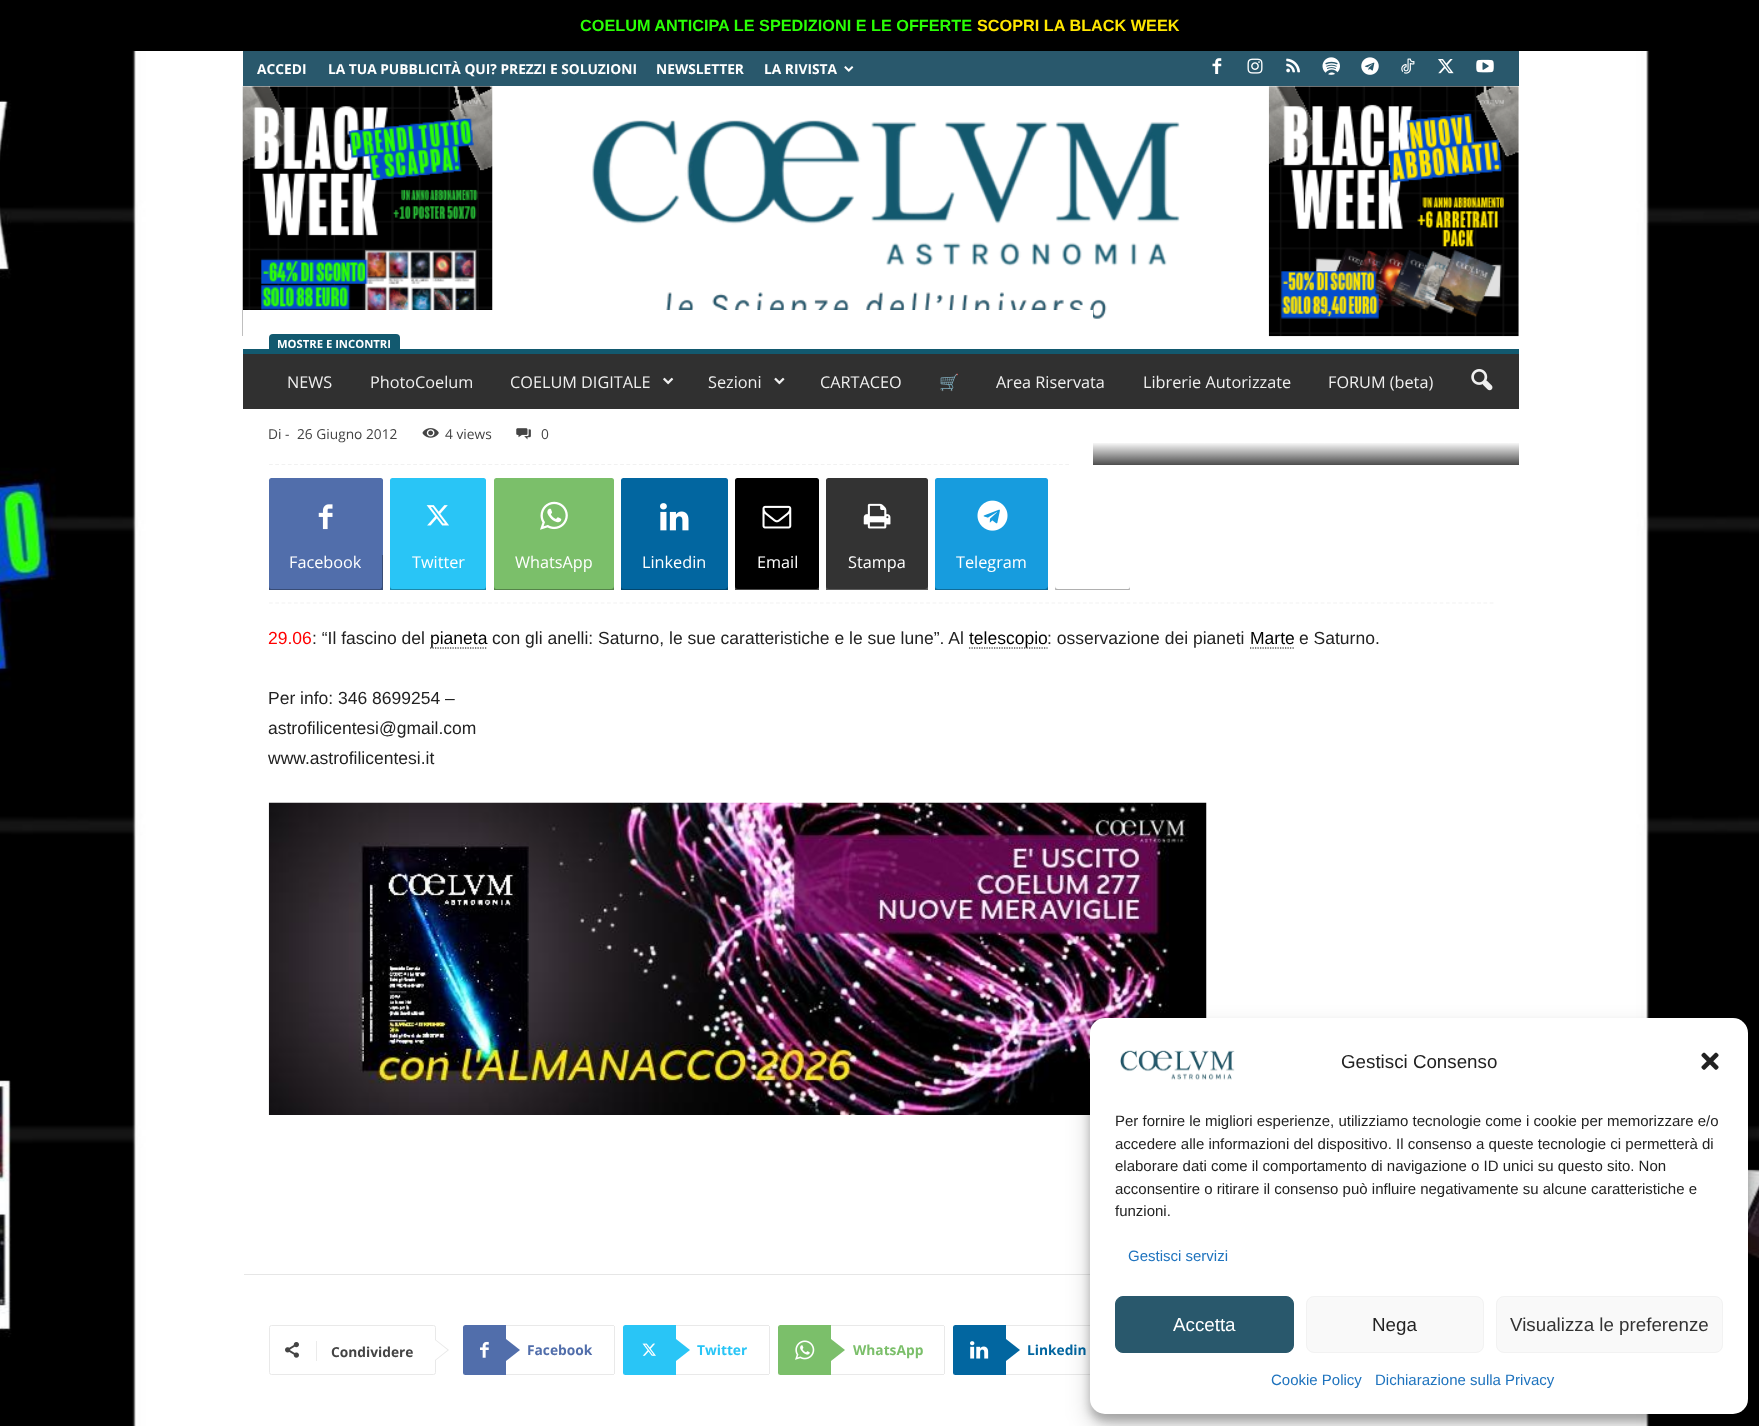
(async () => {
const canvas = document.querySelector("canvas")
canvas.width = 1759
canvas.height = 1426
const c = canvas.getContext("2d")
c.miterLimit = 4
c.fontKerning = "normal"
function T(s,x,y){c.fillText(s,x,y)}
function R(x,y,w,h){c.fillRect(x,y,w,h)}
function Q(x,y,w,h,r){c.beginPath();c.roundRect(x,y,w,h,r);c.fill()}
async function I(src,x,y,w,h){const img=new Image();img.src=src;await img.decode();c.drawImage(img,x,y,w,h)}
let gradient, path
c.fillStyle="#fff"
R(0,0,1759,1426)
c.fillStyle="#000"
R(0,0,1759,51)
c.font="bold 16.25px Liberation Sans"
c.fillStyle="#2aff05"
T("COELUM ANTICIPA LE SPEDIZIONI E LE OFFERTE",580,31)
c.fillStyle="#ffe600"
T("SCOPRI LA BLACK WEEK",977,31)
await I("1.png",0,51,1759,1375)
c.fillStyle="#29586c"
R(243,51,1276,35)
c.font="bold 13.75px Open Sans"
c.fillStyle="#fff"
T("ACCEDI",257,74)
T("LA TUA PUBBLICITÀ QUI? PREZZI E SOLUZIONI",328,74)
T("NEWSLETTER",656,74)
T("LA RIVISTA",764,74)
await I("2.png",844,66,10,6)
await I("3.png",1212,58,10,16)
await I("4.png",1247,58,16,16)
await I("5.png",1286,58,14,15)
await I("6.png",1322,57,18,18)
await I("7.png",1361,57,18,18)
await I("8.png",1401,58,14,16)
await I("9.png",1438,59,16,15)
await I("10.png",1476,59,18,14)
await I("11.png",242,86,251,250)
await I("12.png",592,120,588,199)
await I("13.png",1268,86,251,251)
c.fillStyle="#303030"
R(243,354,1276,55)
c.fillStyle="#fff"
R(243,310,850,26)
c.fillStyle="#12596f"
Q(269,334,131,19,4)
R(243,349,1276,5)
c.font="16.25px Open Sans"
c.fillStyle="#efefef"
T("NEWS",287,388)
T("PhotoCoelum",370,388)
T("COELUM DIGITALE",510,388)
await I("14.png",663,377,11,8)
T("Sezioni",708,388)
await I("15.png",774,377,11,8)
T("CARTACEO",820,388)
c.font="16.25px Noto Color Emoji"
T("🛒",939,388)
c.font="16.25px Open Sans"
T("Area Riservata",996,388)
T("Librerie Autorizzate",1143,388)
T("FORUM (beta)",1328,388)
await I("16.png",1471,369,22,22)
c.font="bold 11.25px Open Sans"
c.fillStyle="#fff"
T("MOSTRE E INCONTRI",277,348)
path = new Path2D("M269 464.5h800")
c.strokeStyle="#f1f1f1"
c.lineWidth=1.2
c.setLineDash([3.75,2.52])
c.stroke(path)
c.font="13.75px Open Sans"
c.fillStyle="#444"
T("Di -",268,439)
T("26 Giugno 2012",297,439)
await I("17.png",422,428,17,10)
T("4 views",445,439)
await I("18.png",516,428,15,12)
T("0",541,439)
gradient = c.createLinearGradient(881,442,881,465)
gradient.addColorStop(0,"#00000000")
gradient.addColorStop(1,"#000000b3")
c.fillStyle = gradient
R(1093,443,426,22)
path = new Path2D("M269 603h1225")
c.setLineDash([3.75,2.51])
c.stroke(path)
c.fillStyle="#516eab"
c.beginPath()
c.roundRect(269,478,114,77,[2.5,2.5,0,0])
c.fill()
await I("19.png",318,504,15,26)
R(269,555,113,34)
c.save()
c.beginPath()
c.rect(269,478,114,112)
c.clip()
c.fillStyle="#384c76"
path = new Path2D("M269 586v4c0 2 1 3 3 3h108c2 0 3-1 3-3v-35h-1v31c0 2-1 3-2 3h-109c-1 0-2-1-2-3z")
c.fill(path)
c.restore()
c.font="16.25px Open Sans"
c.fillStyle="#fff"
T("Facebook",289,568)
c.fillStyle="#29c5f6"
c.beginPath()
c.roundRect(390,478,96,77,[2.5,2.5,0,0])
c.fill()
await I("20.png",426,505,23,21)
R(390,555,96,34)
c.save()
c.beginPath()
c.rect(390,478,96,112)
c.clip()
c.fillStyle="#1c88aa"
path = new Path2D("M390 586v4c0 2 1 3 2 3h92c1 0 2-1 2-3v-4c0 2-1 3-2 3h-92c-1 0-2-1-2-3z")
c.fill(path)
c.restore()
c.fillStyle="#fff"
T("Twitter",412,568)
c.fillStyle="#7bbf6a"
c.beginPath()
c.roundRect(494,478,120,77,[2.5,2.5,0,0])
c.fill()
await I("21.png",540,501,28,29)
R(494,555,120,34)
c.save()
c.beginPath()
c.rect(494,478,120,112)
c.clip()
c.fillStyle="#558449"
path = new Path2D("M494 586v4c0 2 1 3 2 3h116c1 0 2-1 2-3v-4c0 2-1 3-3 3h-115c-1 0-2-1-2-3z")
c.fill(path)
c.restore()
c.fillStyle="#fff"
T("WhatsApp",515,568)
c.fillStyle="#0266a0"
c.beginPath()
c.roundRect(621,478,107,77,[2.5,2.5,0,0])
c.fill()
await I("22.png",660,503,29,28)
R(621,555,107,34)
c.save()
c.beginPath()
c.rect(621,478,107,112)
c.clip()
c.fillStyle="#01466e"
path = new Path2D("M621 586v4c0 2 1 3 3 3h102c1 0 2-1 2-3v-4c0 2-2 3-3 3h-101c-2 0-3-1-3-3z")
c.fill(path)
c.restore()
c.fillStyle="#fff"
T("Linkedin",642,568)
c.fillStyle="#000"
c.beginPath()
c.roundRect(735,478,84,77,[2.5,2.5,0,0])
c.fill()
await I("23.png",762,505,30,24)
R(735,555,84,34)
c.save()
c.beginPath()
c.rect(735,478,84,112)
c.clip()
c.fillStyle="#474747"
path = new Path2D("M735 586v4c0 2 1 3 3 3h78c2 0 3-1 3-3v-4c0 2-1 3-3 3h-78c-2 0-3-1-3-3z")
c.fill(path)
c.restore()
c.fillStyle="#fff"
T("Email",757,568)
c.fillStyle="#333"
c.beginPath()
c.roundRect(826,478,102,77,[2.5,2.5,0,0])
c.fill()
await I("24.png",863,503,28,26)
R(826,555,102,34)
c.save()
c.beginPath()
c.rect(826,478,102,112)
c.clip()
c.fillStyle="#5c5c5c"
path = new Path2D("M826 586v4c0 2 1 3 2 3h98c1 0 2-1 2-3v-4c0 2-2 3-3 3h-96c-2 0-3-1-3-3z")
c.fill(path)
c.restore()
c.fillStyle="#fff"
T("Stampa",848,568)
c.fillStyle="#179cde"
c.beginPath()
c.roundRect(935,478,113,77,[2.5,2.5,0,0])
c.fill()
await I("25.png",977,500,31,31)
R(935,555,113,34)
c.save()
c.beginPath()
c.rect(935,478,113,112)
c.clip()
c.fillStyle="#106c99"
path = new Path2D("M935 586v4c0 2 1 3 3 3h108c1 0 2-1 2-3v-4c0 2-2 3-3 3h-107c-2 0-3-1-3-3z")
c.fill(path)
c.restore()
c.fillStyle="#fff"
T("Telegram",956,568)
c.save()
c.beginPath()
c.rect(1055,478,75,112)
c.clip()
c.fillStyle="#b0b0b0"
path = new Path2D("M1055 586c0 10 2 7 14 7h47c12 0 14 3 14-7c0 2-1 3-2 3h-70c-2 0-3-1-3-3z")
c.fill(path)
c.restore()
c.font="17.5px Liberation Sans"
c.fillStyle="#f00"
T("29.06",268,644)
c.fillStyle="#222"
T(": “Il fascino del",312,644)
path = new Path2D("M430 648h57.5")
c.strokeStyle="#000"
c.setLineDash([1.25,1.25])
c.stroke(path)
c.fillStyle="#000"
T("pianeta",430,644)
c.fillStyle="#222"
T("con gli anelli: Saturno, le sue caratteristiche e le sue lune”. Al",492,644)
path = new Path2D("M969 648h78.5")
c.stroke(path)
c.fillStyle="#000"
T("telescopio",969,644)
c.fillStyle="#222"
T(": osservazione dei pianeti",1047,644)
c.fillStyle="#000"
T("Marte",1250,644)
path = new Path2D("M1250 648h45")
c.stroke(path)
c.fillStyle="#222"
T("e Saturno.",1299,644)
T("Per info: 346 8699254 –",268,704)
T("astrofilicentesi@gmail.com",268,734)
T("www.astrofilicentesi.it",268,764)
await I("26.png",268,802,939,313)
c.fillStyle="#e6e6e6"
R(244,1274,846,1)
c.beginPath()
c.roundRect(269.5,1325.5,166,49,2)
c.strokeStyle="#e9e9e9"
c.lineWidth=1
c.setLineDash([])
c.stroke()
c.fillStyle="#e9e9e9"
path = new Path2D("M435 1361v-22l14 11z")
c.fill(path)
await I("27.png",285,1342,14,16)
c.fillStyle="#ebebeb"
R(316,1341,1,20)
c.font="bold 13.75px Open Sans"
c.fillStyle="#444"
T("Condividere",331,1357)
c.fillStyle="#fff"
path = new Path2D("M435 1360v-20l12.5 10z")
c.fill(path)
c.fillStyle="#e9e9e9"
R(503,1325,111,1)
R(503,1374,111,1)
c.fillStyle="#516eab"
c.beginPath()
c.roundRect(463,1325,43,50,[2.5,0,0,2.5])
c.fill()
await I("28.png",480,1341,9,17)
path = new Path2D("M506 1361v-22l14 11z")
c.fill(path)
c.fillStyle="#e9e9e9"
R(614,1326,1,48)
c.fillStyle="#516eab"
T("Facebook",527,1355)
c.fillStyle="#e9e9e9"
R(673,1325,96,1)
R(673,1374,96,1)
c.fillStyle="#29c5f6"
c.beginPath()
c.roundRect(623,1325,53,50,[2.5,0,0,2.5])
c.fill()
await I("29.png",642,1343,14,13)
path = new Path2D("M676 1361v-22l14 11z")
c.fill(path)
c.fillStyle="#e9e9e9"
R(769,1326,1,48)
c.fillStyle="#29c5f6"
T("Twitter",697,1355)
c.fillStyle="#e9e9e9"
R(828,1325,116,1)
R(828,1374,116,1)
c.fillStyle="#7bbf6a"
c.beginPath()
c.roundRect(778,1325,53,50,[2.5,0,0,2.5])
c.fill()
await I("30.png",795,1340,20,20)
path = new Path2D("M831 1361v-22l14 11z")
c.fill(path)
c.fillStyle="#e9e9e9"
R(944,1326,1,48)
c.fillStyle="#7bbf6a"
T("WhatsApp",853,1355)
c.fillStyle="#e9e9e9"
R(1003,1325,87,1)
R(1003,1374,87,1)
c.fillStyle="#0266a0"
c.beginPath()
c.roundRect(953,1325,53,50,[2.5,0,0,2.5])
c.fill()
await I("31.png",970,1341,19,18)
path = new Path2D("M1006 1361v-22l14 11z")
c.fill(path)
T("Linkedin",1027,1355)
c.fillStyle="#0000003b"
c.filter="blur(4px)"
c.beginPath()
c.roundRect(1090,1025,658,396,15)
c.fill()
c.filter="none"
c.fillStyle="#00000030"
c.filter="blur(12.5px)"
c.beginPath()
c.roundRect(1090,1030,658,396,15)
c.fill()
c.filter="none"
c.fillStyle="#fff"
Q(1090,1018,658,396,15)
await I("32.png",1120,1050,115,30)
c.font="18.75px Liberation Sans"
c.fillStyle="#222"
T("Gestisci Consenso",1341,1068)
await I("33.png",1701,1052,18,18)
c.font="15px Liberation Sans"
T("Per fornire le migliori esperienze, utilizziamo tecnologie come i cookie per memorizzare e/o",1115,1126)
T("accedere alle informazioni del dispositivo. Il consenso a queste tecnologie ci permetterà di",1115,1149)
T("elaborare dati come il comportamento di navigazione o ID unici su questo sito. Non",1115,1171)
T("acconsentire o ritirare il consenso può influire negativamente su alcune caratteristiche e",1115,1194)
T("funzioni.",1115,1216)
c.fillStyle="#1e73be"
T("Gestisci servizi",1128,1261)
c.fillStyle="#29586c"
c.beginPath()
c.roundRect(1115.5,1296.5,178,56,7.5)
c.fill()
c.strokeStyle="#29586c"
c.stroke()
c.font="18.75px Liberation Sans"
c.fillStyle="#fff"
T("Accetta",1173,1331)
c.fillStyle="#f9f9f9"
c.beginPath()
c.roundRect(1306.5,1296.5,177,56,7.5)
c.fill()
c.strokeStyle="#f2f2f2"
c.stroke()
c.fillStyle="#222"
T("Nega",1372,1331)
c.fillStyle="#f9f9f9"
c.beginPath()
c.roundRect(1496.5,1296.5,226,56,7.5)
c.fill()
c.stroke()
c.fillStyle="#333"
T("Visualizza le preferenze",1510,1331)
c.font="15px Liberation Sans"
c.fillStyle="#1e73be"
T("Cookie Policy",1271,1385)
T("Dichiarazione sulla Privacy",1375,1385)
})()
